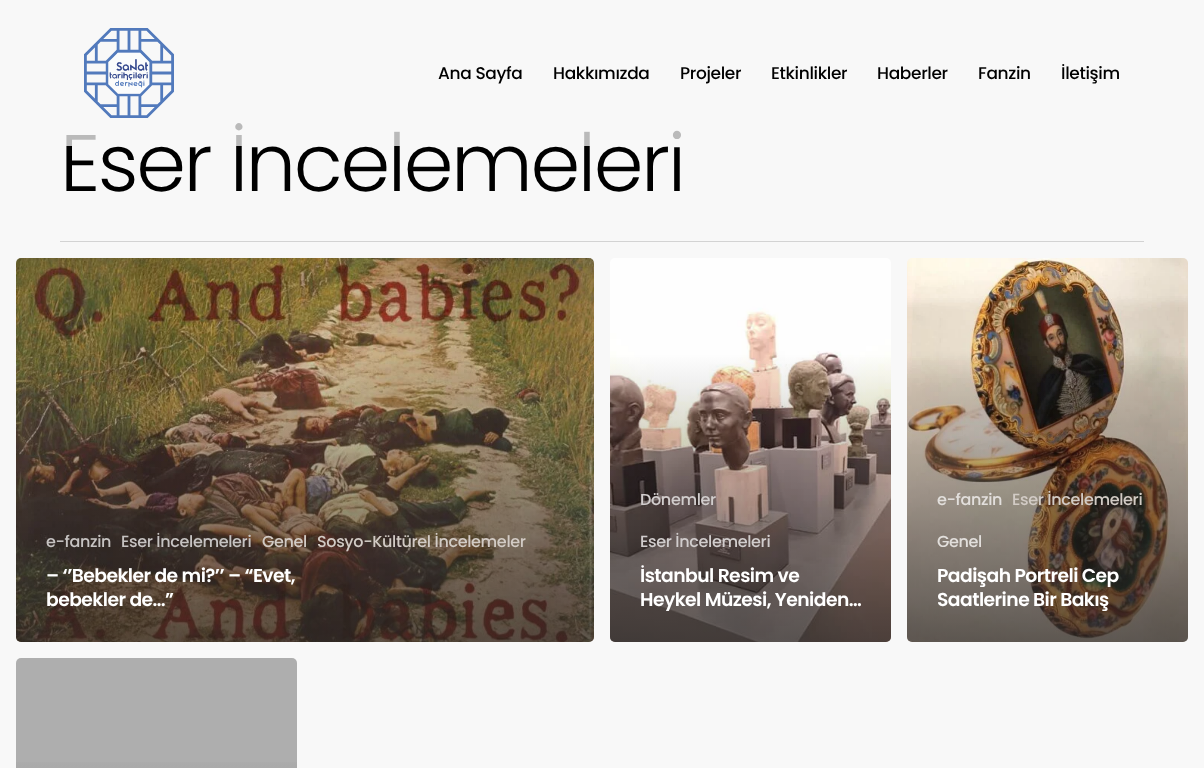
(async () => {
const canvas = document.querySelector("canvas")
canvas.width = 1204
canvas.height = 768
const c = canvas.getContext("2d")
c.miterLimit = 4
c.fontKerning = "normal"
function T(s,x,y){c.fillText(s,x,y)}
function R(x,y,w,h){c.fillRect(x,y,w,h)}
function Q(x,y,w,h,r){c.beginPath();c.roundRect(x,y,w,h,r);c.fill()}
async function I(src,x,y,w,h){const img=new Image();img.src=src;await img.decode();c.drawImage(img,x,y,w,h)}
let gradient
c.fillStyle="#f8f8f8"
R(0,0,1204,768)
c.letterSpacing="-2.4px"
c.font="300 80px Poppins"
c.fillStyle="#000"
T("Eser İncelemeleri",60,191)
c.fillStyle="#f8f8f8bf"
R(66,123,615,23)
await I("1.png",84,28,90,90)
c.letterSpacing="-0.35px"
c.font="500 17px Poppins"
c.fillStyle="#000"
T("Ana Sayfa",438,79)
T("Hakkımızda",553,79)
T("Projeler",680,79)
T("Etkinlikler",771,79)
T("Haberler",877,79)
T("Fanzin",978,79)
T("İletişim",1061,79)
c.fillStyle="#d3d3d3"
R(60,241,1084,1)
await I("2.png",16,258,578,384)
gradient = c.createLinearGradient(307,354,307,644)
gradient.addColorStop(0,"#23232300")
gradient.addColorStop(1,"#232323a6")
c.fillStyle = gradient
c.beginPath()
c.roundRect(16,354,578,288,[0,0,5,5])
c.fill()
c.font="500 16px Poppins"
c.fillStyle="#c6c3c2"
T("e-fanzin",46,547)
T("Eser İncelemeleri",121,547)
c.fillStyle="#d2cbc5"
T("Genel",262,547)
T("Sosyo-Kültürel İncelemeler",317,547)
c.letterSpacing="-0.55px"
c.font="600 18.75px Poppins"
c.fillStyle="#fff"
T("– ‘’Bebekler de mi?’’ – “Evet,",46,582)
T("bebekler de…”",46,606)
await I("3.png",610,258,281,384)
gradient = c.createLinearGradient(751,354,751,644)
gradient.addColorStop(0,"#23232300")
gradient.addColorStop(1,"#232323a6")
c.fillStyle = gradient
c.beginPath()
c.roundRect(610,354,281,288,[0,0,5,5])
c.fill()
c.letterSpacing="-0.35px"
c.font="500 16px Poppins"
c.fillStyle="#d1cdcd"
T("Dönemler",640,505)
T("Eser İncelemeleri",640,547)
c.letterSpacing="-0.55px"
c.font="600 18.75px Poppins"
c.fillStyle="#fff"
T("İstanbul Resim ve",640,582)
T("Heykel Müzesi, Yeniden…",640,606)
await I("4.png",907,258,281,384)
gradient = c.createLinearGradient(1048,354,1048,644)
gradient.addColorStop(0,"#23232300")
gradient.addColorStop(1,"#232323a6")
c.fillStyle = gradient
c.beginPath()
c.roundRect(907,354,281,288,[0,0,5,5])
c.fill()
c.letterSpacing="-0.35px"
c.font="500 16px Poppins"
c.fillStyle="#e2dfdc"
T("e-fanzin",937,505)
c.fillStyle="#d2cbc5"
T("Eser İncelemeleri",1012,505)
c.fillStyle="#e2dfdc"
T("Genel",937,547)
c.letterSpacing="-0.55px"
c.font="600 18.75px Poppins"
c.fillStyle="#fff"
T("Padişah Portreli Cep",937,582)
T("Saatlerine Bir Bakış",937,606)
c.fillStyle="#aeaeae"
Q(16,658,281,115,5)
gradient = c.createLinearGradient(157,754,157,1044)
gradient.addColorStop(0,"#aeaeae")
gradient.addColorStop(1,"#545454")
c.fillStyle = gradient
R(16,762,281,6)
})()
